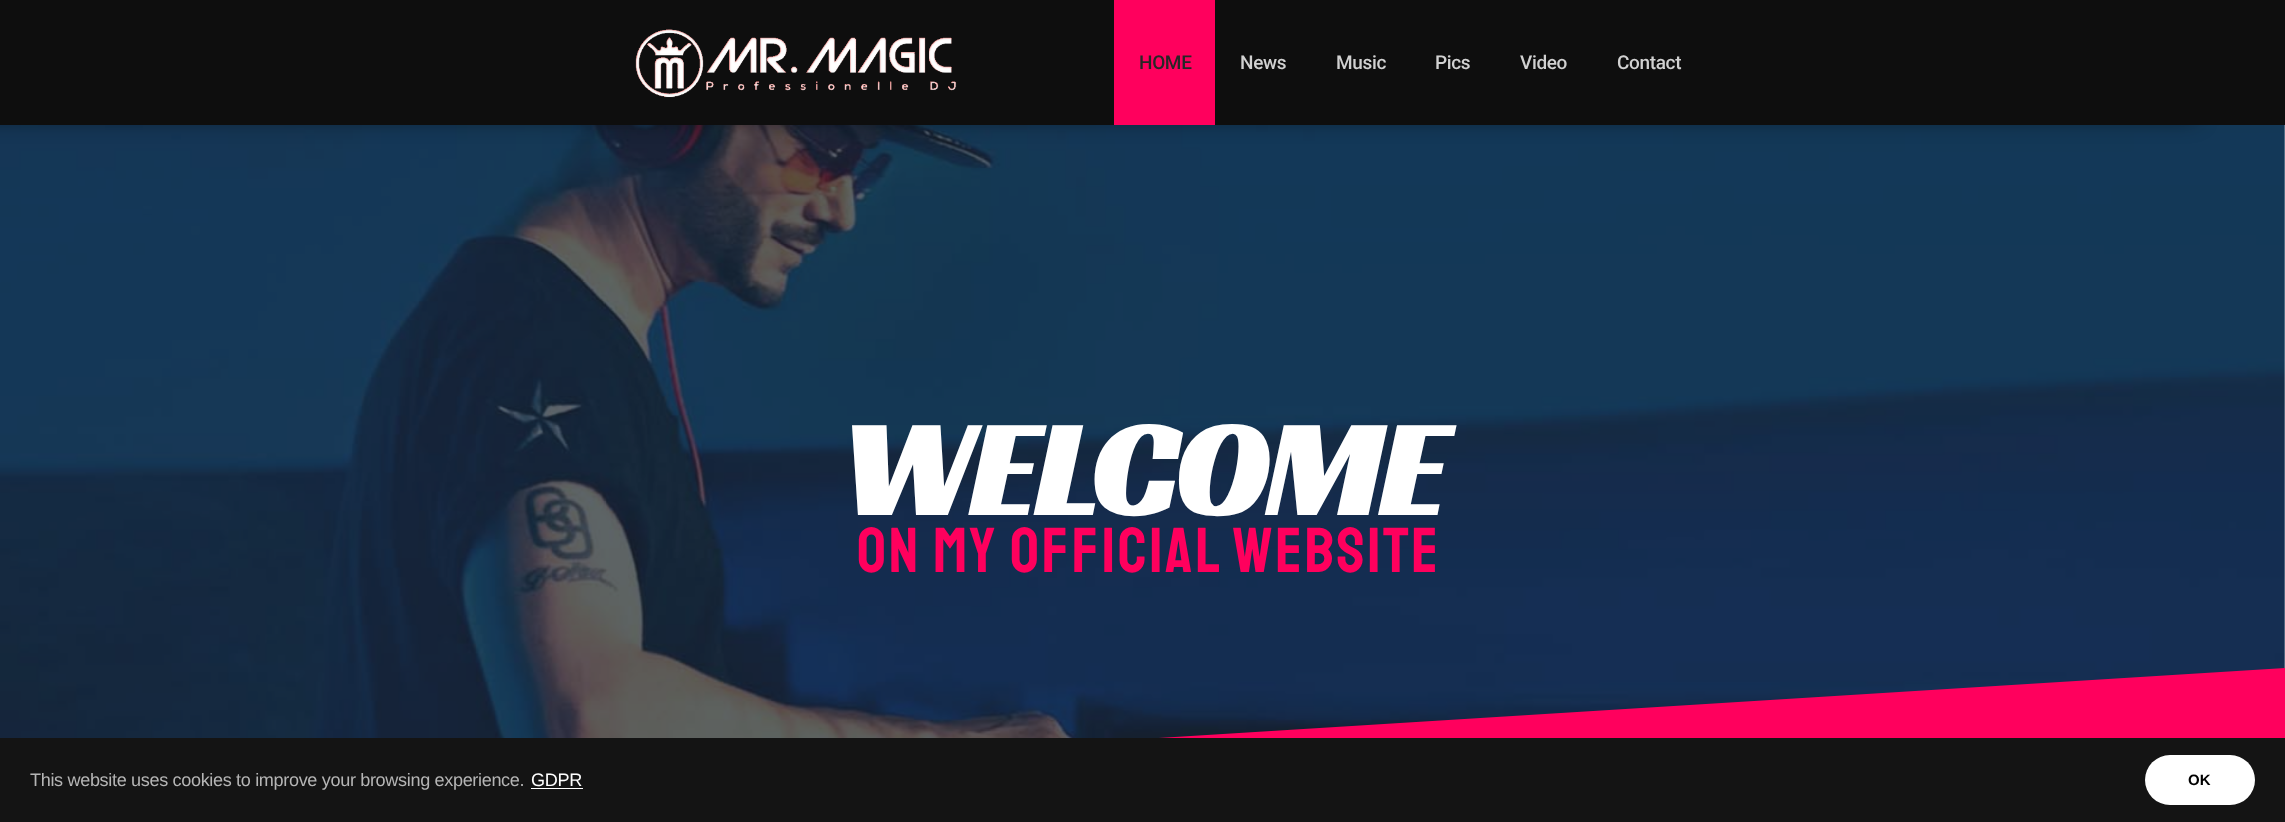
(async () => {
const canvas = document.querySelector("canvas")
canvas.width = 2285
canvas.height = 822
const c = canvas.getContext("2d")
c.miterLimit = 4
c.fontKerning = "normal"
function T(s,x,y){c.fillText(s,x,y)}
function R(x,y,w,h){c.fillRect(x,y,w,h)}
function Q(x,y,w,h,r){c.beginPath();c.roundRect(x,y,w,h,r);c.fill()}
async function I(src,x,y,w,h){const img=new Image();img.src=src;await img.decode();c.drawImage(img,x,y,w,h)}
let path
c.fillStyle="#fff"
R(0,0,2285,822)
await I("2.png",0,125,2285,613)
c.fillStyle="#00000080"
c.filter="blur(11px)"
c.beginPath()
c.rect(-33,6,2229,113)
c.fill()
c.filter="none"
c.fillStyle="#0e0e0e"
R(0,0,2285,125)
await I("1.png",635,29,322,69)
c.fillStyle="#ff005d"
R(1114,0,101,125)
c.letterSpacing="-0.35px"
c.font="500 19px Roboto"
c.fillStyle="#272727"
T("HOME",1139,69)
c.fillStyle="#d1d1d1"
T("News",1240,69)
T("Music",1336,69)
T("Pics",1435,69)
T("Video",1520,69)
T("Contact",1617,69)
c.letterSpacing="-6px"
c.font="141.25px Racing Sans One"
c.fillStyle="#fff"
T("WELCOME",841,515)
c.letterSpacing="2.6px"
c.font="63.75px Staatliches"
c.fillStyle="#ff005d"
T("on my official website",857,572)
path = new Path2D("M0 810v9h2285v-151z")
c.fill(path)
c.fillStyle="#141414"
R(0,738,2285,84)
c.letterSpacing="-0.35px"
c.font="18.1px Liberation Sans"
c.fillStyle="#b5b5b5"
T("This website uses cookies to improve your browsing experience.",30,786)
c.fillStyle="#fff"
T("GDPR",531,786)
R(531,788,52,1)
Q(2145,755,110,50,25)
c.letterSpacing="0px"
c.font="bold 15px Liberation Sans"
c.fillStyle="#000"
T("OK",2188,785)
})()
